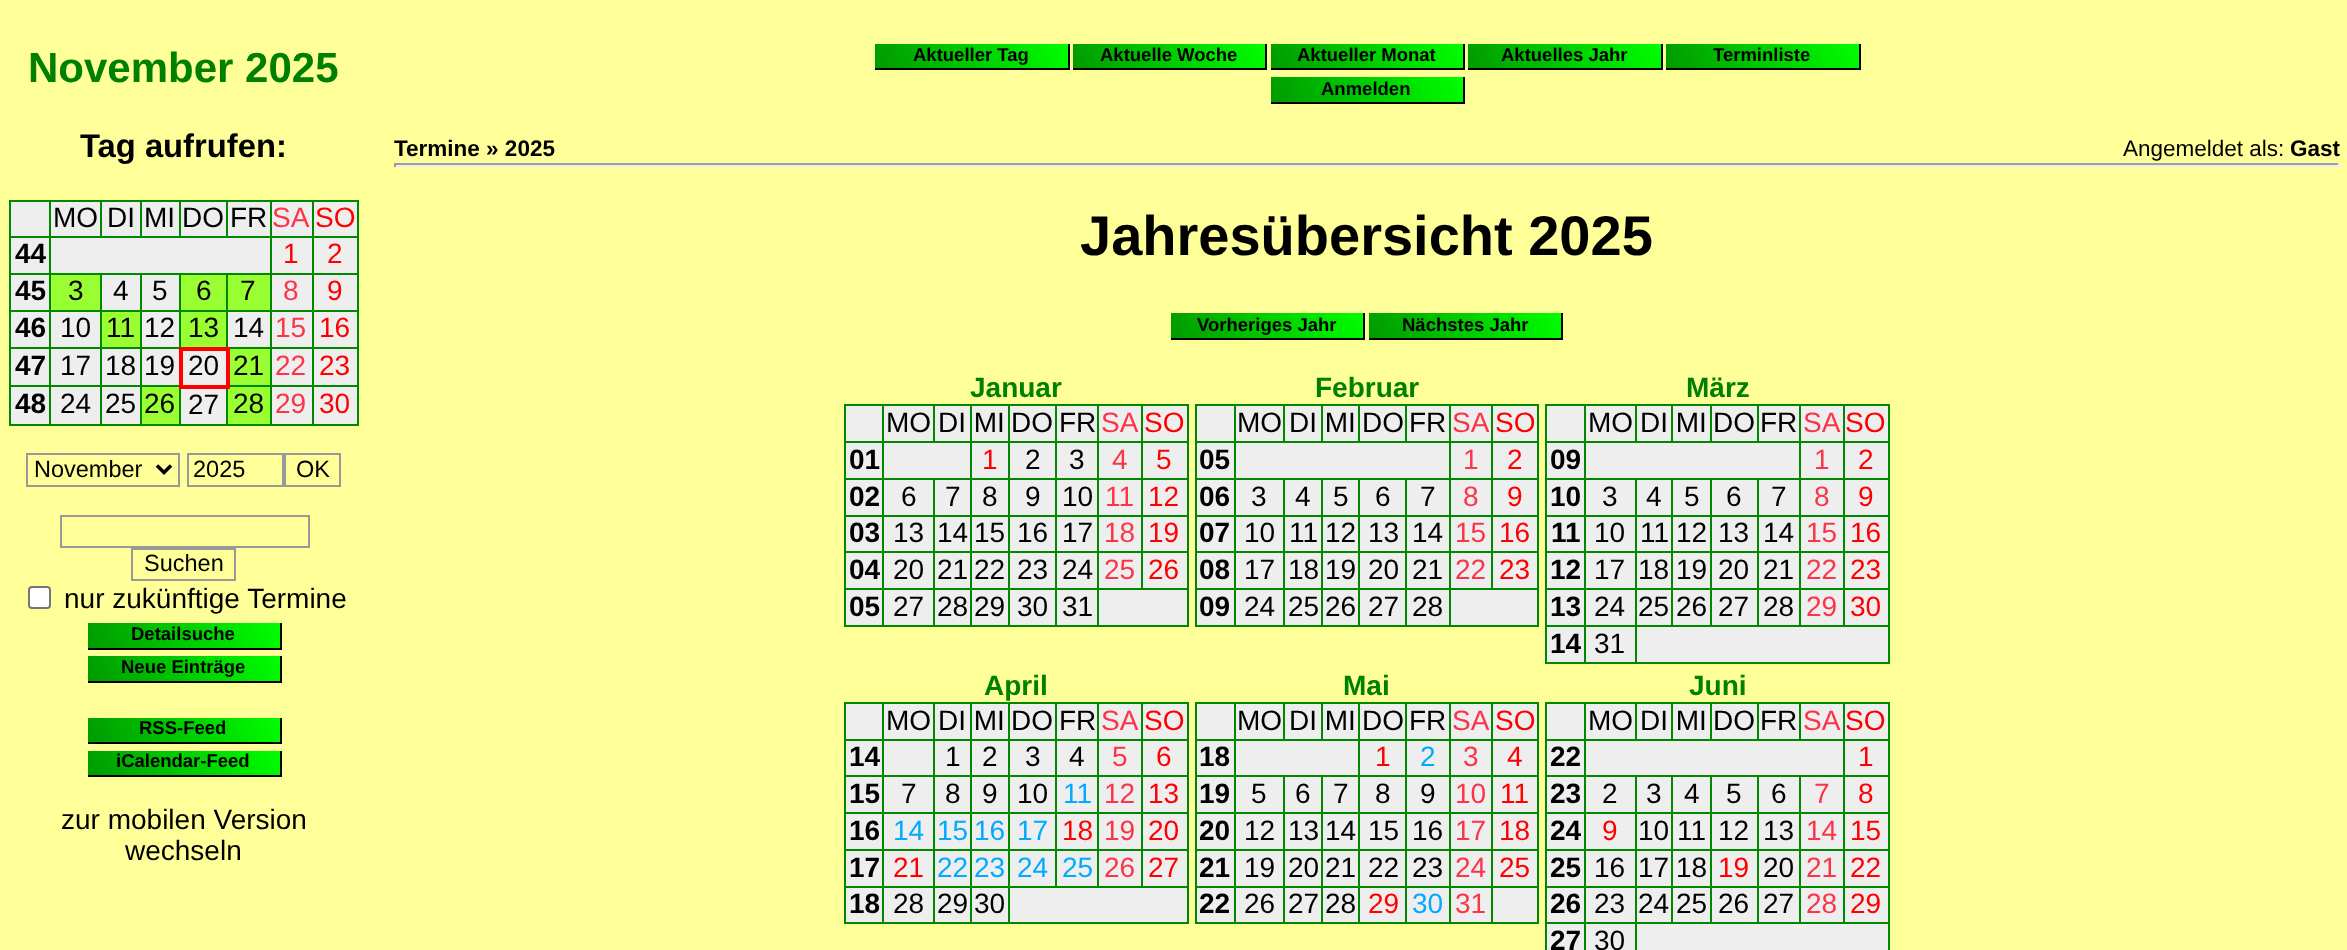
(async () => {
const canvas = document.querySelector("canvas")
canvas.width = 2347
canvas.height = 950
const c = canvas.getContext("2d")
c.miterLimit = 4
c.fontKerning = "normal"
function T(s,x,y){c.fillText(s,x,y)}
function R(x,y,w,h){c.fillRect(x,y,w,h)}
let gradient, path
c.fillStyle="#ff9"
R(0,0,2347,950)
c.font="bold 42px Liberation Sans"
c.fillStyle="#008000"
T("November 2025",28,82)
c.font="bold 32.75px Liberation Sans"
c.fillStyle="#000"
T("Tag aufrufen:",80,157)
c.fillStyle="#eee"
R(11,202,346,222)
c.fillStyle="#080"
R(9,200,350,2)
R(357,200,2,225)
R(9,424,350,2)
R(9,200,2,225)
R(312,236,47,2)
R(312,273,47,2)
R(312,310,47,2)
R(312,347,47,2)
R(312,385,47,2)
R(312,385,2,40)
R(270,385,43,2)
R(312,347,2,40)
R(270,347,43,2)
R(312,310,2,38)
R(270,310,43,2)
R(312,273,2,39)
R(270,273,43,2)
R(312,236,2,39)
R(270,236,43,2)
R(270,385,2,40)
R(226,385,45,2)
R(270,347,2,40)
R(226,347,45,2)
R(270,310,2,38)
R(226,310,45,2)
R(270,273,2,39)
R(226,273,45,2)
R(270,236,2,39)
R(49,236,222,2)
R(226,310,2,38)
R(179,310,49,2)
R(226,273,2,39)
R(179,273,49,2)
R(140,347,40,2)
R(179,310,2,38)
R(140,310,40,2)
R(179,273,2,39)
R(140,273,40,2)
R(179,385,2,40)
R(140,385,40,2)
R(140,385,2,40)
R(100,385,42,2)
R(140,347,2,40)
R(100,347,42,2)
R(140,310,2,38)
R(100,310,42,2)
R(140,273,2,39)
R(100,273,42,2)
R(100,385,2,40)
R(49,385,53,2)
R(100,347,2,40)
R(49,347,53,2)
R(100,310,2,38)
R(49,310,53,2)
R(100,273,2,39)
R(49,273,53,2)
R(49,385,2,40)
R(9,385,42,2)
R(49,347,2,40)
R(9,347,42,2)
R(49,310,2,38)
R(9,310,42,2)
R(49,273,2,39)
R(9,273,42,2)
R(49,236,2,39)
R(9,236,42,2)
R(49,200,2,38)
c.font="28px Liberation Sans"
c.fillStyle="#000"
T("MO",53,227)
c.fillStyle="#080"
R(100,200,2,38)
c.fillStyle="#000"
T("DI",107,227)
c.fillStyle="#080"
R(140,200,2,38)
c.fillStyle="#000"
T("MI",144,227)
c.fillStyle="#080"
R(179,200,2,38)
c.fillStyle="#000"
T("DO",182,227)
c.fillStyle="#080"
R(226,200,2,38)
c.fillStyle="#000"
T("FR",230,227)
c.fillStyle="#080"
R(270,200,2,38)
c.fillStyle="#fb3448"
T("SA",272,227)
c.fillStyle="#080"
R(312,200,2,38)
c.fillStyle="#f00"
T("SO",315,227)
c.font="bold 28px Liberation Sans"
c.fillStyle="#000"
T("44",15,263)
c.font="28px Liberation Sans"
c.fillStyle="#f00"
T("1",283,263)
T("2",327,263)
c.font="bold 28px Liberation Sans"
c.fillStyle="#000"
T("45",15,300)
c.fillStyle="#9f3"
R(51,275,49,35)
c.font="28px Liberation Sans"
c.fillStyle="#000"
T("3",68,300)
T("4",113,300)
T("5",152,300)
c.fillStyle="#9f3"
R(181,275,45,35)
c.fillStyle="#000"
T("6",196,300)
c.fillStyle="#9f3"
R(228,275,42,35)
c.fillStyle="#000"
T("7",240,300)
c.fillStyle="#fb3448"
T("8",283,300)
c.fillStyle="#f00"
T("9",327,300)
c.font="bold 28px Liberation Sans"
c.fillStyle="#000"
T("46",15,337)
c.font="28px Liberation Sans"
T("10",60,337)
c.fillStyle="#9f3"
R(102,312,38,35)
c.fillStyle="#000"
T("11",106,337)
T("12",144,337)
c.fillStyle="#9f3"
R(181,312,45,35)
c.fillStyle="#000"
T("13",188,337)
T("14",233,337)
c.fillStyle="#fb3448"
T("15",275,337)
c.fillStyle="#f00"
T("16",319,337)
c.font="bold 28px Liberation Sans"
c.fillStyle="#000"
T("47",15,375)
c.font="28px Liberation Sans"
T("17",60,375)
T("18 19",105,375)
c.fillStyle="#f00"
R(179,347,50,4)
c.fillStyle="#9f3"
R(228,387,42,37)
c.fillStyle="#080"
R(226,385,2,40)
c.fillStyle="#f00"
R(226,347,4,42)
R(179,385,50,4)
R(179,347,4,42)
c.fillStyle="#000"
T("20",188,375)
c.fillStyle="#9f3"
R(230,349,40,36)
c.fillStyle="#000"
T("21",233,375)
c.fillStyle="#fb3448"
T("22",275,375)
c.fillStyle="#f00"
T("23",319,375)
c.font="bold 28px Liberation Sans"
c.fillStyle="#000"
T("48",15,413)
c.font="28px Liberation Sans"
T("24",60,413)
T("25",105,413)
c.fillStyle="#9f3"
R(142,387,37,37)
c.fillStyle="#000"
T("26",144,413)
T("27",188,414)
T("28",233,413)
c.fillStyle="#fb3448"
T("29",275,413)
c.fillStyle="#f00"
T("30",319,413)
c.strokeStyle="#999"
c.lineWidth=2
c.strokeRect(27,454,152,32)
path = new Path2D("M157 465.5l7 7l7-7")
c.strokeStyle="#000"
c.lineWidth=3.5
c.stroke(path)
c.font="23.5px Liberation Sans"
c.fillStyle="#000"
T("November",34,477)
c.strokeStyle="#999"
c.lineWidth=2
c.strokeRect(188,454,95,32)
T("2025",193,477)
c.strokeRect(285,454,55,32)
T("OK",296,477)
c.strokeRect(61,516,248,31)
c.strokeRect(132,549,103,31)
T("Suchen",144,571)
c.fillStyle="#fff"
c.beginPath()
c.roundRect(29,587,21,21,3)
c.fill()
c.strokeStyle="#767676"
c.stroke()
c.font="28px Liberation Sans"
c.fillStyle="#000"
T("nur zukünftige Termine",64,608)
gradient = c.createLinearGradient(106,680,261,591)
gradient.addColorStop(0,"#090")
gradient.addColorStop(1,"#0f0")
c.fillStyle = gradient
R(88,623,192,25)
c.fillStyle="#000"
R(280,623,2,26)
R(88,648,194,2)
c.font="bold 18.5px Liberation Sans"
T("Detailsuche",131,640)
gradient = c.createLinearGradient(106,713,261,624)
gradient.addColorStop(0,"#090")
gradient.addColorStop(1,"#0f0")
c.fillStyle = gradient
R(88,656,192,25)
c.fillStyle="#000"
R(280,656,2,27)
R(88,681,194,2)
T("Neue Einträge",121,673)
gradient = c.createLinearGradient(106,774,261,685)
gradient.addColorStop(0,"#090")
gradient.addColorStop(1,"#0f0")
c.fillStyle = gradient
R(88,718,192,24)
c.fillStyle="#000"
R(280,718,2,26)
R(88,742,194,2)
T("RSS-Feed",139,734)
gradient = c.createLinearGradient(106,808,261,718)
gradient.addColorStop(0,"#090")
gradient.addColorStop(1,"#0f0")
c.fillStyle = gradient
R(88,751,192,24)
c.fillStyle="#000"
R(280,751,2,26)
R(88,775,194,2)
T("iCalendar-Feed",116,767)
c.font="28px Liberation Sans"
T("zur mobilen Version",61,829)
T("wechseln",125,860)
gradient = c.createLinearGradient(894,101,1049,11)
gradient.addColorStop(0,"#090")
gradient.addColorStop(1,"#0f0")
c.fillStyle = gradient
R(875,44,193,24)
c.fillStyle="#000"
R(1068,44,2,26)
R(875,68,194,2)
c.font="bold 18.5px Liberation Sans"
T("Aktueller Tag",913,61)
gradient = c.createLinearGradient(1092,101,1246,11)
gradient.addColorStop(0,"#090")
gradient.addColorStop(1,"#0f0")
c.fillStyle = gradient
R(1073,44,192,24)
c.fillStyle="#000"
R(1265,44,2,26)
R(1073,68,194,2)
T("Aktuelle Woche",1100,61)
gradient = c.createLinearGradient(1289,101,1444,11)
gradient.addColorStop(0,"#090")
gradient.addColorStop(1,"#0f0")
c.fillStyle = gradient
R(1271,44,192,24)
c.fillStyle="#000"
R(1463,44,2,26)
R(1271,68,194,2)
T("Aktueller Monat",1297,61)
gradient = c.createLinearGradient(1487,101,1642,11)
gradient.addColorStop(0,"#090")
gradient.addColorStop(1,"#0f0")
c.fillStyle = gradient
R(1468,44,193,24)
c.fillStyle="#000"
R(1661,44,2,26)
R(1468,68,195,2)
T("Aktuelles Jahr",1501,61)
gradient = c.createLinearGradient(1685,101,1840,11)
gradient.addColorStop(0,"#090")
gradient.addColorStop(1,"#0f0")
c.fillStyle = gradient
R(1666,44,193,24)
c.fillStyle="#000"
R(1859,44,2,26)
R(1666,68,194,2)
T("Terminliste",1713,61)
gradient = c.createLinearGradient(1289,134,1444,45)
gradient.addColorStop(0,"#090")
gradient.addColorStop(1,"#0f0")
c.fillStyle = gradient
R(1271,77,192,25)
c.fillStyle="#000"
R(1463,77,2,26)
R(1271,102,194,2)
T("Anmelden",1321,95)
c.font="bold 22.5px Liberation Sans"
T("Termine » 2025",394,156)
c.font="22.5px Liberation Sans"
T("Angemeldet als:",2123,156)
c.font="bold 22.5px Liberation Sans"
T("Gast",2290,156)
c.fillStyle="#9f9f9f"
R(394,163,1946,2)
c.fillStyle="#eee"
R(2338,163,2,4)
R(394,165,1946,2)
c.fillStyle="#9f9f9f"
R(394,163,2,4)
c.font="bold 56px Liberation Sans"
c.fillStyle="#000"
T("Jahresübersicht 2025",1080,255)
gradient = c.createLinearGradient(1190,370,1344,281)
gradient.addColorStop(0,"#090")
gradient.addColorStop(1,"#0f0")
c.fillStyle = gradient
R(1171,313,192,25)
c.fillStyle="#000"
R(1363,313,2,27)
R(1171,338,194,2)
c.font="bold 18.5px Liberation Sans"
T("Vorheriges Jahr",1197,331)
gradient = c.createLinearGradient(1387,370,1542,281)
gradient.addColorStop(0,"#090")
gradient.addColorStop(1,"#0f0")
c.fillStyle = gradient
R(1369,313,192,25)
c.fillStyle="#000"
R(1561,313,2,27)
R(1369,338,194,2)
T("Nächstes Jahr",1402,331)
c.font="bold 28px Liberation Sans"
c.fillStyle="#008000"
T("Januar",970,397)
c.fillStyle="#eee"
R(846,406,341,219)
c.fillStyle="#080"
R(844,404,344,2)
R(1187,404,2,223)
R(844,625,344,2)
R(844,404,2,223)
R(1141,441,47,2)
R(1141,478,47,2)
R(1141,515,47,2)
R(1141,551,47,2)
R(1097,588,91,2)
R(1141,551,2,39)
R(1097,551,46,2)
R(1141,515,2,38)
R(1097,515,46,2)
R(1141,478,2,38)
R(1097,478,46,2)
R(1141,441,2,39)
R(1097,441,46,2)
R(1097,588,2,39)
R(1055,588,44,2)
R(1097,551,2,39)
R(1055,551,44,2)
R(1097,515,2,38)
R(1055,515,44,2)
R(1097,478,2,38)
R(1055,478,44,2)
R(1097,441,2,39)
R(1055,441,44,2)
R(1055,588,2,39)
R(1008,588,49,2)
R(1055,551,2,39)
R(1008,551,49,2)
R(1055,515,2,38)
R(1008,515,49,2)
R(1055,478,2,38)
R(1008,478,49,2)
R(1055,441,2,39)
R(1008,441,49,2)
R(1008,588,2,39)
R(970,588,40,2)
R(1008,551,2,39)
R(970,551,40,2)
R(1008,515,2,38)
R(970,515,40,2)
R(1008,478,2,38)
R(970,478,40,2)
R(1008,441,2,39)
R(970,441,40,2)
R(970,588,2,39)
R(933,588,38,2)
R(970,551,2,39)
R(933,551,38,2)
R(970,515,2,38)
R(933,515,38,2)
R(970,478,2,38)
R(933,478,38,2)
R(970,441,2,39)
R(882,441,89,2)
R(933,588,2,39)
R(882,588,53,2)
R(933,551,2,39)
R(882,551,53,2)
R(933,515,2,38)
R(882,515,53,2)
R(933,478,2,38)
R(882,478,53,2)
R(882,588,2,39)
R(844,588,40,2)
R(882,551,2,39)
R(844,551,40,2)
R(882,515,2,38)
R(844,515,40,2)
R(882,478,2,38)
R(844,478,40,2)
R(882,441,2,39)
R(844,441,40,2)
R(882,404,2,39)
c.font="28px Liberation Sans"
c.fillStyle="#000"
T("MO",886,432)
c.fillStyle="#080"
R(970,404,2,39)
R(933,404,2,39)
c.fillStyle="#000"
T("DI MI",938,432)
c.fillStyle="#080"
R(1008,404,2,39)
c.fillStyle="#000"
T("DO",1011,432)
c.fillStyle="#080"
R(1055,404,2,39)
c.fillStyle="#000"
T("FR",1059,432)
c.fillStyle="#080"
R(1097,404,2,39)
c.fillStyle="#fb3448"
T("SA",1101,432)
c.fillStyle="#080"
R(1141,404,2,39)
c.fillStyle="#f00"
T("SO",1144,432)
c.font="bold 28px Liberation Sans"
c.fillStyle="#000"
T("01",849,469)
c.font="28px Liberation Sans"
c.fillStyle="#f00"
T("1",982,469)
c.fillStyle="#000"
T("2",1025,469)
T("3",1069,469)
c.fillStyle="#fb3448"
T("4",1112,469)
c.fillStyle="#f00"
T("5",1156,469)
c.font="bold 28px Liberation Sans"
c.fillStyle="#000"
T("02",849,506)
c.font="28px Liberation Sans"
T("6",901,506)
T("7",945,506)
T("8",982,506)
T("9",1025,506)
T("10",1062,506)
c.fillStyle="#fb3448"
T("11",1105,506)
c.fillStyle="#f00"
T("12",1148,506)
c.font="bold 28px Liberation Sans"
c.fillStyle="#000"
T("03",849,542)
c.font="28px Liberation Sans"
T("13",893,542)
T("14",937,542)
T("15",974,542)
T("16",1017,542)
T("17",1062,542)
c.fillStyle="#fb3448"
T("18",1104,542)
c.fillStyle="#f00"
T("19",1148,542)
c.font="bold 28px Liberation Sans"
c.fillStyle="#000"
T("04",849,579)
c.font="28px Liberation Sans"
T("20",893,579)
T("21",937,579)
T("22",974,579)
T("23",1017,579)
T("24",1062,579)
c.fillStyle="#fb3448"
T("25",1104,579)
c.fillStyle="#f00"
T("26",1148,579)
c.font="bold 28px Liberation Sans"
c.fillStyle="#000"
T("05",849,616)
c.font="28px Liberation Sans"
T("27",893,616)
T("28",937,616)
T("29",974,616)
T("30",1017,616)
T("31",1062,616)
c.font="bold 28px Liberation Sans"
c.fillStyle="#008000"
T("Februar",1315,397)
c.fillStyle="#eee"
R(1197,406,340,219)
c.fillStyle="#080"
R(1195,404,343,2)
R(1537,404,2,223)
R(1195,625,343,2)
R(1195,404,2,223)
R(1491,441,47,2)
R(1491,478,47,2)
R(1491,515,47,2)
R(1491,551,47,2)
R(1449,588,89,2)
R(1491,551,2,39)
R(1449,551,44,2)
R(1491,515,2,38)
R(1449,515,44,2)
R(1491,478,2,38)
R(1449,478,44,2)
R(1491,441,2,39)
R(1449,441,44,2)
R(1449,588,2,39)
R(1405,588,46,2)
R(1449,551,2,39)
R(1405,551,46,2)
R(1449,515,2,38)
R(1405,515,46,2)
R(1449,478,2,38)
R(1405,478,46,2)
R(1449,441,2,39)
R(1234,441,217,2)
R(1405,588,2,39)
R(1358,588,49,2)
R(1405,551,2,39)
R(1358,551,49,2)
R(1405,515,2,38)
R(1358,515,49,2)
R(1405,478,2,38)
R(1358,478,49,2)
R(1358,588,2,39)
R(1321,588,39,2)
R(1358,551,2,39)
R(1321,551,39,2)
R(1358,515,2,38)
R(1321,515,39,2)
R(1358,478,2,38)
R(1321,478,39,2)
R(1321,588,2,39)
R(1283,588,40,2)
R(1321,551,2,39)
R(1283,551,40,2)
R(1321,515,2,38)
R(1283,515,40,2)
R(1321,478,2,38)
R(1283,478,40,2)
R(1283,588,2,39)
R(1234,588,51,2)
R(1283,551,2,39)
R(1234,551,51,2)
R(1283,515,2,38)
R(1234,515,51,2)
R(1283,478,2,38)
R(1234,478,51,2)
R(1234,588,2,39)
R(1195,588,41,2)
R(1234,551,2,39)
R(1195,551,41,2)
R(1234,515,2,38)
R(1195,515,41,2)
R(1234,478,2,38)
R(1195,478,41,2)
R(1234,441,2,39)
R(1195,441,41,2)
R(1234,404,2,39)
c.font="28px Liberation Sans"
c.fillStyle="#000"
T("MO",1237,432)
c.fillStyle="#080"
R(1321,404,2,39)
R(1283,404,2,39)
c.fillStyle="#000"
T("DI MI",1289,432)
c.fillStyle="#080"
R(1358,404,2,39)
c.fillStyle="#000"
T("DO",1362,432)
c.fillStyle="#080"
R(1405,404,2,39)
c.fillStyle="#000"
T("FR",1409,432)
c.fillStyle="#080"
R(1449,404,2,39)
c.fillStyle="#fb3448"
T("SA",1452,432)
c.fillStyle="#080"
R(1491,404,2,39)
c.fillStyle="#f00"
T("SO",1495,432)
c.font="bold 28px Liberation Sans"
c.fillStyle="#000"
T("05",1199,469)
c.font="28px Liberation Sans"
c.fillStyle="#fb3448"
T("1",1463,469)
c.fillStyle="#f00"
T("2",1507,469)
c.font="bold 28px Liberation Sans"
c.fillStyle="#000"
T("06",1199,506)
c.font="28px Liberation Sans"
T("3",1251,506)
T("4",1295,506)
T("5",1333,506)
T("6",1375,506)
T("7",1420,506)
c.fillStyle="#fb3448"
T("8",1463,506)
c.fillStyle="#f00"
T("9",1507,506)
c.font="bold 28px Liberation Sans"
c.fillStyle="#000"
T("07",1199,542)
c.font="28px Liberation Sans"
T("10",1244,542)
T("11",1289,542)
T("12",1325,542)
T("13",1368,542)
T("14",1412,542)
c.fillStyle="#fb3448"
T("15",1455,542)
c.fillStyle="#f00"
T("16",1499,542)
c.font="bold 28px Liberation Sans"
c.fillStyle="#000"
T("08",1199,579)
c.font="28px Liberation Sans"
T("17",1244,579)
T("18",1288,579)
T("19",1325,579)
T("20",1368,579)
T("21",1412,579)
c.fillStyle="#fb3448"
T("22",1455,579)
c.fillStyle="#f00"
T("23",1499,579)
c.font="bold 28px Liberation Sans"
c.fillStyle="#000"
T("09",1199,616)
c.font="28px Liberation Sans"
T("24",1244,616)
T("25",1288,616)
T("26",1325,616)
T("27",1368,616)
T("28",1412,616)
c.font="bold 28px Liberation Sans"
c.fillStyle="#008000"
T("März",1686,397)
c.fillStyle="#eee"
R(1547,406,341,256)
c.fillStyle="#080"
R(1545,404,345,2)
R(1888,404,2,259)
R(1545,662,345,2)
R(1545,404,2,259)
R(1843,441,47,2)
R(1843,478,47,2)
R(1843,515,47,2)
R(1843,551,47,2)
R(1843,588,47,2)
R(1635,625,255,2)
R(1843,588,2,39)
R(1799,588,46,2)
R(1843,551,2,39)
R(1799,551,46,2)
R(1843,515,2,38)
R(1799,515,46,2)
R(1843,478,2,38)
R(1799,478,46,2)
R(1843,441,2,39)
R(1799,441,46,2)
R(1799,588,2,39)
R(1757,588,44,2)
R(1799,551,2,39)
R(1757,551,44,2)
R(1799,515,2,38)
R(1757,515,44,2)
R(1799,478,2,38)
R(1757,478,44,2)
R(1799,441,2,39)
R(1584,441,217,2)
R(1757,588,2,39)
R(1710,588,49,2)
R(1757,551,2,39)
R(1710,551,49,2)
R(1757,515,2,38)
R(1710,515,49,2)
R(1757,478,2,38)
R(1710,478,49,2)
R(1710,588,2,39)
R(1671,588,41,2)
R(1710,551,2,39)
R(1671,551,41,2)
R(1710,515,2,38)
R(1671,515,41,2)
R(1710,478,2,38)
R(1671,478,41,2)
R(1671,588,2,39)
R(1635,588,38,2)
R(1671,551,2,39)
R(1635,551,38,2)
R(1671,515,2,38)
R(1635,515,38,2)
R(1671,478,2,38)
R(1635,478,38,2)
R(1635,625,2,38)
R(1584,625,52,2)
R(1635,588,2,39)
R(1584,588,52,2)
R(1635,551,2,39)
R(1584,551,52,2)
R(1635,515,2,38)
R(1584,515,52,2)
R(1635,478,2,38)
R(1584,478,52,2)
R(1584,625,2,38)
R(1545,625,41,2)
R(1584,588,2,39)
R(1545,588,41,2)
R(1584,551,2,39)
R(1545,551,41,2)
R(1584,515,2,38)
R(1545,515,41,2)
R(1584,478,2,38)
R(1545,478,41,2)
R(1584,441,2,39)
R(1545,441,41,2)
R(1584,404,2,39)
c.font="28px Liberation Sans"
c.fillStyle="#000"
T("MO",1588,432)
c.fillStyle="#080"
R(1671,404,2,39)
R(1635,404,2,39)
c.fillStyle="#000"
T("DI MI",1640,432)
c.fillStyle="#080"
R(1710,404,2,39)
c.fillStyle="#000"
T("DO",1713,432)
c.fillStyle="#080"
R(1757,404,2,39)
c.fillStyle="#000"
T("FR",1760,432)
c.fillStyle="#080"
R(1799,404,2,39)
c.fillStyle="#fb3448"
T("SA",1803,432)
c.fillStyle="#080"
R(1843,404,2,39)
c.fillStyle="#f00"
T("SO",1845,432)
c.font="bold 28px Liberation Sans"
c.fillStyle="#000"
T("09",1550,469)
c.font="28px Liberation Sans"
c.fillStyle="#fb3448"
T("1",1814,469)
c.fillStyle="#f00"
T("2",1858,469)
c.font="bold 28px Liberation Sans"
c.fillStyle="#000"
T("10",1550,506)
c.font="28px Liberation Sans"
T("3",1602,506)
T("4",1646,506)
T("5",1684,506)
T("6",1726,506)
T("7",1771,506)
c.fillStyle="#fb3448"
T("8",1814,506)
c.fillStyle="#f00"
T("9",1858,506)
c.font="bold 28px Liberation Sans"
c.fillStyle="#000"
T("11",1551,542)
c.font="28px Liberation Sans"
T("10",1594,542)
T("11",1640,542)
T("12",1676,542)
T("13",1718,542)
T("14",1763,542)
c.fillStyle="#fb3448"
T("15",1806,542)
c.fillStyle="#f00"
T("16",1850,542)
c.font="bold 28px Liberation Sans"
c.fillStyle="#000"
T("12",1550,579)
c.font="28px Liberation Sans"
T("17",1594,579)
T("18",1638,579)
T("19",1676,579)
T("20",1718,579)
T("21",1763,579)
c.fillStyle="#fb3448"
T("22",1806,579)
c.fillStyle="#f00"
T("23",1850,579)
c.font="bold 28px Liberation Sans"
c.fillStyle="#000"
T("13",1550,616)
c.font="28px Liberation Sans"
T("24",1594,616)
T("25",1638,616)
T("26",1676,616)
T("27",1718,616)
T("28",1763,616)
c.fillStyle="#fb3448"
T("29",1806,616)
c.fillStyle="#f00"
T("30",1850,616)
c.font="bold 28px Liberation Sans"
c.fillStyle="#000"
T("14",1550,653)
c.font="28px Liberation Sans"
T("31",1594,653)
c.font="bold 28px Liberation Sans"
c.fillStyle="#008000"
T("April",984,695)
c.fillStyle="#eee"
R(846,704,341,218)
c.fillStyle="#080"
R(844,702,344,2)
R(1187,702,2,222)
R(844,922,344,2)
R(844,702,2,222)
R(1141,739,47,2)
R(1141,775,47,2)
R(1141,812,47,2)
R(1141,849,47,2)
R(1008,886,180,2)
R(1141,849,2,38)
R(1097,849,46,2)
R(1141,812,2,39)
R(1097,812,46,2)
R(1141,775,2,39)
R(1097,775,46,2)
R(1141,739,2,38)
R(1097,739,46,2)
R(1097,849,2,38)
R(1055,849,44,2)
R(1097,812,2,39)
R(1055,812,44,2)
R(1097,775,2,39)
R(1055,775,44,2)
R(1097,739,2,38)
R(1055,739,44,2)
R(1055,849,2,38)
R(1008,849,49,2)
R(1055,812,2,39)
R(1008,812,49,2)
R(1055,775,2,39)
R(1008,775,49,2)
R(1055,739,2,38)
R(1008,739,49,2)
R(1008,886,2,38)
R(970,886,40,2)
R(1008,849,2,38)
R(970,849,40,2)
R(1008,812,2,39)
R(970,812,40,2)
R(1008,775,2,39)
R(970,775,40,2)
R(1008,739,2,38)
R(970,739,40,2)
R(970,886,2,38)
R(933,886,38,2)
R(970,849,2,38)
R(933,849,38,2)
R(970,812,2,39)
R(933,812,38,2)
R(970,775,2,39)
R(933,775,38,2)
R(970,739,2,38)
R(933,739,38,2)
R(933,886,2,38)
R(882,886,53,2)
R(933,849,2,38)
R(882,849,53,2)
R(933,812,2,39)
R(882,812,53,2)
R(933,775,2,39)
R(882,775,53,2)
R(933,739,2,38)
R(882,739,53,2)
R(882,886,2,38)
R(844,886,40,2)
R(882,849,2,38)
R(844,849,40,2)
R(882,812,2,39)
R(844,812,40,2)
R(882,775,2,39)
R(844,775,40,2)
R(882,739,2,38)
R(844,739,40,2)
R(882,702,2,38)
c.font="28px Liberation Sans"
c.fillStyle="#000"
T("MO",886,730)
c.fillStyle="#080"
R(970,702,2,38)
R(933,702,2,38)
c.fillStyle="#000"
T("DI MI",938,730)
c.fillStyle="#080"
R(1008,702,2,38)
c.fillStyle="#000"
T("DO",1011,730)
c.fillStyle="#080"
R(1055,702,2,38)
c.fillStyle="#000"
T("FR",1059,730)
c.fillStyle="#080"
R(1097,702,2,38)
c.fillStyle="#fb3448"
T("SA",1101,730)
c.fillStyle="#080"
R(1141,702,2,38)
c.fillStyle="#f00"
T("SO",1144,730)
c.font="bold 28px Liberation Sans"
c.fillStyle="#000"
T("14",849,766)
c.font="28px Liberation Sans"
T("1",945,766)
T("2",982,766)
T("3",1025,766)
T("4",1069,766)
c.fillStyle="#fb3448"
T("5",1112,766)
c.fillStyle="#f00"
T("6",1156,766)
c.font="bold 28px Liberation Sans"
c.fillStyle="#000"
T("15",849,803)
c.font="28px Liberation Sans"
T("7",901,803)
T("8",945,803)
T("9",982,803)
T("10",1017,803)
c.fillStyle="#0af"
T("11",1063,803)
c.fillStyle="#fb3448"
T("12",1104,803)
c.fillStyle="#f00"
T("13",1148,803)
c.font="bold 28px Liberation Sans"
c.fillStyle="#000"
T("16",849,840)
c.font="28px Liberation Sans"
c.fillStyle="#0af"
T("14",893,840)
T("15",937,840)
T("16",974,840)
T("17",1017,840)
c.fillStyle="#f00"
T("18",1062,840)
c.fillStyle="#fb3448"
T("19",1104,840)
c.fillStyle="#f00"
T("20",1148,840)
c.font="bold 28px Liberation Sans"
c.fillStyle="#000"
T("17",849,877)
c.font="28px Liberation Sans"
c.fillStyle="#f00"
T("21",893,877)
c.fillStyle="#0af"
T("22",937,877)
T("23",974,877)
T("24",1017,877)
T("25",1062,877)
c.fillStyle="#fb3448"
T("26",1104,877)
c.fillStyle="#f00"
T("27",1148,877)
c.font="bold 28px Liberation Sans"
c.fillStyle="#000"
T("18",849,913)
c.font="28px Liberation Sans"
T("28",893,913)
T("29",937,913)
T("30",974,913)
c.font="bold 28px Liberation Sans"
c.fillStyle="#008000"
T("Mai",1343,695)
c.fillStyle="#eee"
R(1197,704,340,218)
c.fillStyle="#080"
R(1195,702,343,2)
R(1537,702,2,222)
R(1195,922,343,2)
R(1195,702,2,222)
R(1491,739,47,2)
R(1491,775,47,2)
R(1491,812,47,2)
R(1491,849,47,2)
R(1491,886,47,2)
R(1491,886,2,38)
R(1449,886,44,2)
R(1491,849,2,38)
R(1449,849,44,2)
R(1491,812,2,39)
R(1449,812,44,2)
R(1491,775,2,39)
R(1449,775,44,2)
R(1491,739,2,38)
R(1449,739,44,2)
R(1449,886,2,38)
R(1405,886,46,2)
R(1449,849,2,38)
R(1405,849,46,2)
R(1449,812,2,39)
R(1405,812,46,2)
R(1449,775,2,39)
R(1405,775,46,2)
R(1449,739,2,38)
R(1405,739,46,2)
R(1405,886,2,38)
R(1358,886,49,2)
R(1405,849,2,38)
R(1358,849,49,2)
R(1405,812,2,39)
R(1358,812,49,2)
R(1405,775,2,39)
R(1358,775,49,2)
R(1405,739,2,38)
R(1358,739,49,2)
R(1358,886,2,38)
R(1321,886,39,2)
R(1358,849,2,38)
R(1321,849,39,2)
R(1358,812,2,39)
R(1321,812,39,2)
R(1358,775,2,39)
R(1321,775,39,2)
R(1358,739,2,38)
R(1234,739,126,2)
R(1321,886,2,38)
R(1283,886,40,2)
R(1321,849,2,38)
R(1283,849,40,2)
R(1321,812,2,39)
R(1283,812,40,2)
R(1321,775,2,39)
R(1283,775,40,2)
R(1283,886,2,38)
R(1234,886,51,2)
R(1283,849,2,38)
R(1234,849,51,2)
R(1283,812,2,39)
R(1234,812,51,2)
R(1283,775,2,39)
R(1234,775,51,2)
R(1234,886,2,38)
R(1195,886,41,2)
R(1234,849,2,38)
R(1195,849,41,2)
R(1234,812,2,39)
R(1195,812,41,2)
R(1234,775,2,39)
R(1195,775,41,2)
R(1234,739,2,38)
R(1195,739,41,2)
R(1234,702,2,38)
c.font="28px Liberation Sans"
c.fillStyle="#000"
T("MO",1237,730)
c.fillStyle="#080"
R(1321,702,2,38)
R(1283,702,2,38)
c.fillStyle="#000"
T("DI MI",1289,730)
c.fillStyle="#080"
R(1358,702,2,38)
c.fillStyle="#000"
T("DO",1362,730)
c.fillStyle="#080"
R(1405,702,2,38)
c.fillStyle="#000"
T("FR",1409,730)
c.fillStyle="#080"
R(1449,702,2,38)
c.fillStyle="#fb3448"
T("SA",1452,730)
c.fillStyle="#080"
R(1491,702,2,38)
c.fillStyle="#f00"
T("SO",1495,730)
c.font="bold 28px Liberation Sans"
c.fillStyle="#000"
T("18",1199,766)
c.font="28px Liberation Sans"
c.fillStyle="#f00"
T("1",1375,766)
c.fillStyle="#0af"
T("2",1420,766)
c.fillStyle="#fb3448"
T("3",1463,766)
c.fillStyle="#f00"
T("4",1507,766)
c.font="bold 28px Liberation Sans"
c.fillStyle="#000"
T("19",1199,803)
c.font="28px Liberation Sans"
T("5",1251,803)
T("6",1295,803)
T("7",1333,803)
T("8",1375,803)
T("9",1420,803)
c.fillStyle="#fb3448"
T("10",1455,803)
c.fillStyle="#f00"
T("11",1500,803)
c.font="bold 28px Liberation Sans"
c.fillStyle="#000"
T("20",1199,840)
c.font="28px Liberation Sans"
T("12",1244,840)
T("13",1288,840)
T("14",1325,840)
T("15",1368,840)
T("16",1412,840)
c.fillStyle="#fb3448"
T("17",1455,840)
c.fillStyle="#f00"
T("18",1499,840)
c.font="bold 28px Liberation Sans"
c.fillStyle="#000"
T("21",1199,877)
c.font="28px Liberation Sans"
T("19",1244,877)
T("20",1288,877)
T("21",1325,877)
T("22",1368,877)
T("23",1412,877)
c.fillStyle="#fb3448"
T("24",1455,877)
c.fillStyle="#f00"
T("25",1499,877)
c.font="bold 28px Liberation Sans"
c.fillStyle="#000"
T("22",1199,913)
c.font="28px Liberation Sans"
T("26",1244,913)
T("27",1288,913)
T("28",1325,913)
c.fillStyle="#f00"
T("29",1368,913)
c.fillStyle="#0af"
T("30",1412,913)
c.fillStyle="#fb3448"
T("31",1455,913)
c.font="bold 28px Liberation Sans"
c.fillStyle="#008000"
T("Juni",1689,695)
c.fillStyle="#eee"
R(1547,704,341,246)
c.fillStyle="#080"
R(1545,702,345,2)
R(1888,702,2,248)
R(1545,702,2,248)
R(1843,739,47,2)
R(1843,775,47,2)
R(1843,812,47,2)
R(1843,849,47,2)
R(1843,886,47,2)
R(1635,922,255,2)
R(1843,886,2,38)
R(1799,886,46,2)
R(1843,849,2,38)
R(1799,849,46,2)
R(1843,812,2,39)
R(1799,812,46,2)
R(1843,775,2,39)
R(1799,775,46,2)
R(1843,739,2,38)
R(1584,739,261,2)
R(1799,886,2,38)
R(1757,886,44,2)
R(1799,849,2,38)
R(1757,849,44,2)
R(1799,812,2,39)
R(1757,812,44,2)
R(1799,775,2,39)
R(1757,775,44,2)
R(1757,886,2,38)
R(1710,886,49,2)
R(1757,849,2,38)
R(1710,849,49,2)
R(1757,812,2,39)
R(1710,812,49,2)
R(1757,775,2,39)
R(1710,775,49,2)
R(1710,886,2,38)
R(1671,886,41,2)
R(1710,849,2,38)
R(1671,849,41,2)
R(1710,812,2,39)
R(1671,812,41,2)
R(1710,775,2,39)
R(1671,775,41,2)
R(1671,886,2,38)
R(1635,886,38,2)
R(1671,849,2,38)
R(1635,849,38,2)
R(1671,812,2,39)
R(1635,812,38,2)
R(1671,775,2,39)
R(1635,775,38,2)
R(1635,922,2,28)
R(1584,922,52,2)
R(1635,886,2,38)
R(1584,886,52,2)
R(1635,849,2,38)
R(1584,849,52,2)
R(1635,812,2,39)
R(1584,812,52,2)
R(1635,775,2,39)
R(1584,775,52,2)
R(1584,922,2,28)
R(1545,922,41,2)
R(1584,886,2,38)
R(1545,886,41,2)
R(1584,849,2,38)
R(1545,849,41,2)
R(1584,812,2,39)
R(1545,812,41,2)
R(1584,775,2,39)
R(1545,775,41,2)
R(1584,739,2,38)
R(1545,739,41,2)
R(1584,702,2,38)
c.font="28px Liberation Sans"
c.fillStyle="#000"
T("MO",1588,730)
c.fillStyle="#080"
R(1671,702,2,38)
R(1635,702,2,38)
c.fillStyle="#000"
T("DI MI",1640,730)
c.fillStyle="#080"
R(1710,702,2,38)
c.fillStyle="#000"
T("DO",1713,730)
c.fillStyle="#080"
R(1757,702,2,38)
c.fillStyle="#000"
T("FR",1760,730)
c.fillStyle="#080"
R(1799,702,2,38)
c.fillStyle="#fb3448"
T("SA",1803,730)
c.fillStyle="#080"
R(1843,702,2,38)
c.fillStyle="#f00"
T("SO",1845,730)
c.font="bold 28px Liberation Sans"
c.fillStyle="#000"
T("22",1550,766)
c.font="28px Liberation Sans"
c.fillStyle="#f00"
T("1",1858,766)
c.font="bold 28px Liberation Sans"
c.fillStyle="#000"
T("23",1550,803)
c.font="28px Liberation Sans"
T("2",1602,803)
T("3",1646,803)
T("4",1684,803)
T("5",1726,803)
T("6",1771,803)
c.fillStyle="#fb3448"
T("7",1814,803)
c.fillStyle="#f00"
T("8",1858,803)
c.font="bold 28px Liberation Sans"
c.fillStyle="#000"
T("24",1550,840)
c.font="28px Liberation Sans"
c.fillStyle="#f00"
T("9",1602,840)
c.fillStyle="#000"
T("10",1638,840)
T("11",1677,840)
T("12",1718,840)
T("13",1763,840)
c.fillStyle="#fb3448"
T("14",1806,840)
c.fillStyle="#f00"
T("15",1850,840)
c.font="bold 28px Liberation Sans"
c.fillStyle="#000"
T("25",1550,877)
c.font="28px Liberation Sans"
T("16",1594,877)
T("17",1638,877)
T("18",1676,877)
c.fillStyle="#f00"
T("19",1718,877)
c.fillStyle="#000"
T("20",1763,877)
c.fillStyle="#fb3448"
T("21",1806,877)
c.fillStyle="#f00"
T("22",1850,877)
c.font="bold 28px Liberation Sans"
c.fillStyle="#000"
T("26",1550,913)
c.font="28px Liberation Sans"
T("23",1594,913)
T("24",1638,913)
T("25",1676,913)
T("26",1718,913)
T("27",1763,913)
c.fillStyle="#fb3448"
T("28",1806,913)
c.fillStyle="#f00"
T("29",1850,913)
c.font="bold 28px Liberation Sans"
c.fillStyle="#000"
T("27",1550,950)
c.font="28px Liberation Sans"
T("30",1594,950)
})()
